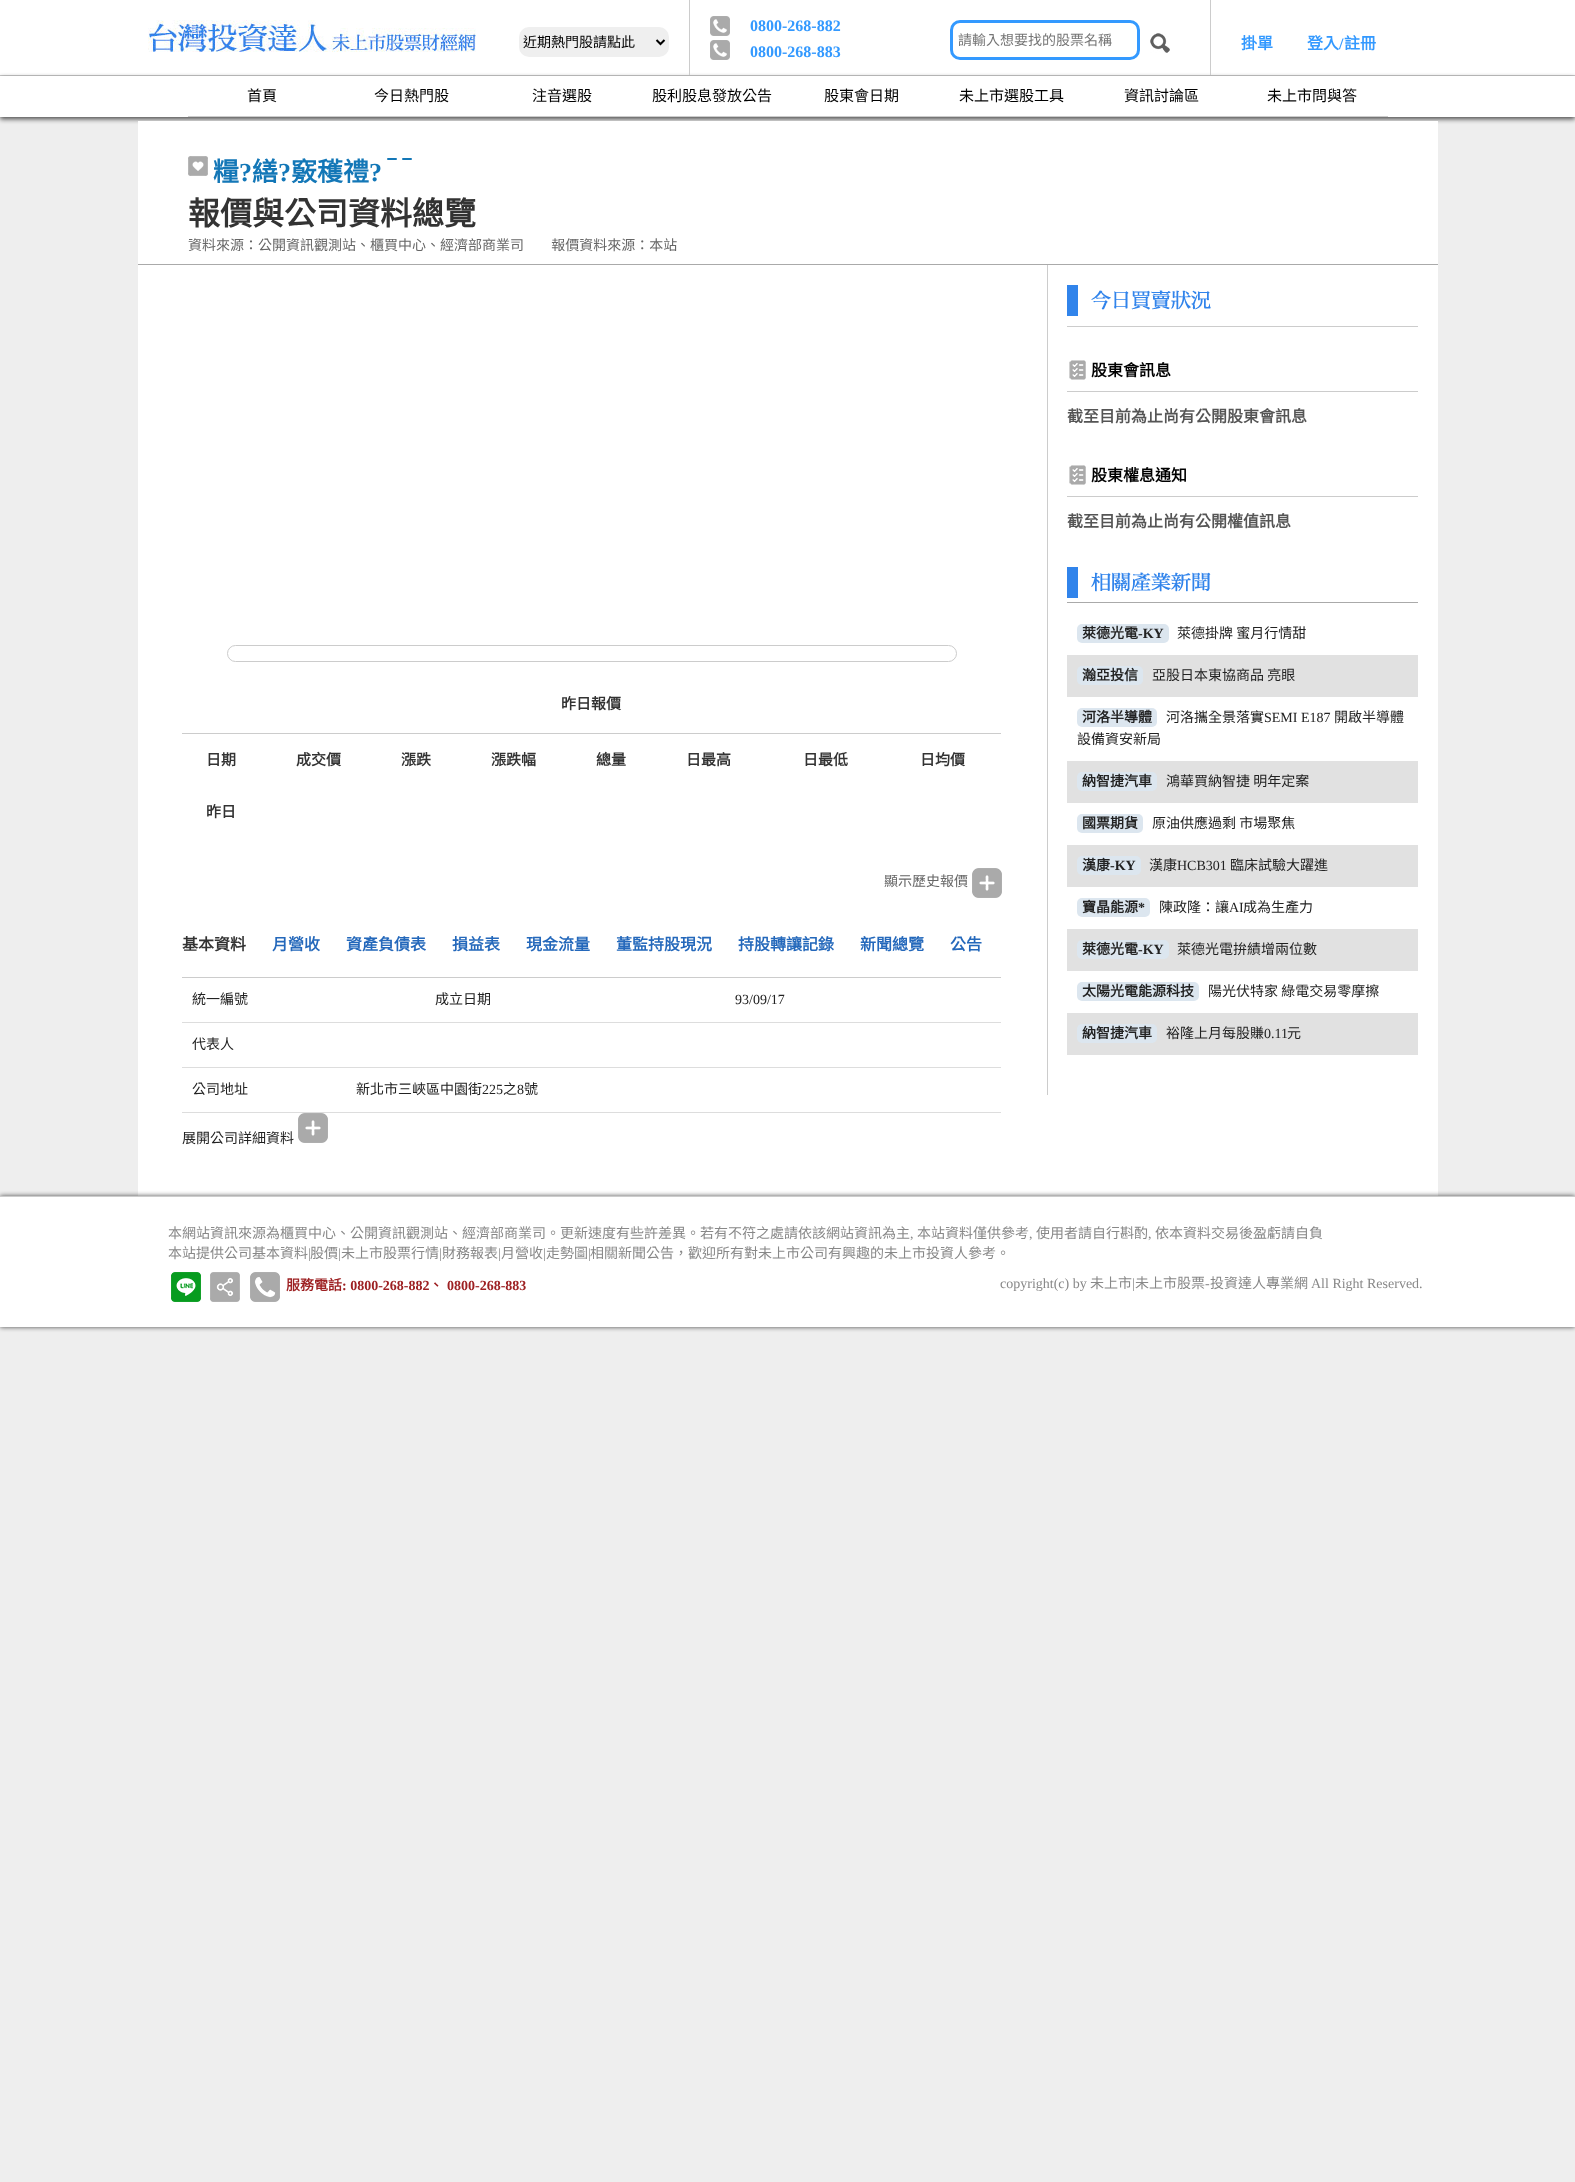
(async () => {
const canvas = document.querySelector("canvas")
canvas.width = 1575
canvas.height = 2182
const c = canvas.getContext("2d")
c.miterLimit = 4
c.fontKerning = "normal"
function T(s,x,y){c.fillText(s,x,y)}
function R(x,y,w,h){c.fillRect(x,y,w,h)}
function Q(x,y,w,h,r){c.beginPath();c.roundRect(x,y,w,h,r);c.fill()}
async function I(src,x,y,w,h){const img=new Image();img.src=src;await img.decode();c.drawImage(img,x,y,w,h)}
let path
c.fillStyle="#eee"
R(0,0,1575,2182)
c.fillStyle="#fff"
R(0,0,1575,75)
c.fillStyle="#ccc"
R(0,75,1575,1)
await I("1.png",148,20,328,32)
c.fillStyle="#000000b3"
c.filter="blur(2.5px)"
c.beginPath()
c.rect(0,78,1575,41)
c.fill()
c.filter="none"
c.fillStyle="#ccc"
R(689,0,1,75)
c.fillStyle="#efefef"
Q(519,27,150,30,10)
path = new Path2D("M656.5 40l4 4l4-4")
c.strokeStyle="#000"
c.lineWidth=2
c.stroke(path)
c.font="14px Noto Sans CJK TC"
c.fillStyle="#000"
T("近期熱門股請點此",523,47)
await I("2.png",710,16,20,20)
await I("2.png",710,40,20,20)
c.font="bold 16px Liberation Serif"
c.fillStyle="#39f"
T("0800-268-882",750,31)
T("0800-268-883",750,57)
c.fillStyle="#ccc"
R(1210,0,1,75)
c.beginPath()
c.roundRect(951.5,21.5,187,37,8.5)
c.strokeStyle="#39f"
c.lineWidth=3
c.stroke()
c.font="14px Noto Sans CJK TC"
c.fillStyle="#757575"
T("請輸入想要找的股票名稱",958,45)
await I("3.png",1150,33,20,20)
c.font="bold 16px Noto Sans CJK TC"
c.fillStyle="#39f"
T("掛單",1241,49)
T("登入",1307,49)
c.font="bold 16px Liberation Serif"
T("/",1339,49)
c.font="bold 16px Noto Sans CJK TC"
T("註冊",1344,49)
c.fillStyle="#fff"
R(0,76,1575,41)
c.fillStyle="#ccc"
R(188,116,1200,1)
c.font="15px Noto Sans CJK TC"
c.fillStyle="#000"
T("首頁",247,101)
T("今日熱門股",374,101)
T("注音選股",532,101)
T("股利股息發放公告",652,101)
T("股東會日期",824,101)
T("未上市選股工具",959,101)
T("資訊討論區",1124,101)
T("未上市問與答",1267,101)
c.fillStyle="#fff"
R(138,121,1300,1075)
c.fillStyle="#aaa"
R(138,264,1300,1)
await I("4.png",188,156,20,20)
c.font="bold 26px Noto Sans CJK TC"
c.fillStyle="#1377b7"
T("糧",213,181)
c.font="bold 26px Liberation Serif"
T("?",239,181)
c.font="bold 26px Noto Sans CJK TC"
T("繕",252,181)
c.font="bold 26px Liberation Serif"
T("?",278,181)
c.font="bold 26px Noto Sans CJK TC"
T("竅穫禮",291,181)
c.font="bold 26px Liberation Serif"
T("?",369,181)
Q(387,158,10,2,1)
Q(402,158,10,2,1)
c.font="bold 32px Noto Sans CJK TC"
c.fillStyle="#333"
T("報價與公司資料總覽",188,225)
c.wordSpacing="24px"
c.font="14px Noto Sans CJK TC"
c.fillStyle="#666"
T("資料來源：公開資訊觀測站、櫃買中心、經濟部商業司 報價資料來源：本站",188,250)
c.beginPath()
c.roundRect(227.5,645.5,729,16,8)
c.strokeStyle="#ccc"
c.lineWidth=1
c.stroke()
c.fillStyle="#ccc"
R(182,733,819,1)
c.wordSpacing="0px"
c.font="bold 15px Noto Sans CJK TC"
c.fillStyle="#333"
T("昨日報價",561,709)
T("日期",206,765)
T("成交價",296,765)
T("漲跌",401,765)
T("漲跌幅",491,765)
T("總量",596,765)
T("日最高",686,765)
T("日最低",803,765)
T("日均價",920,765)
T("昨日",206,817)
c.font="14px Noto Sans CJK TC"
c.fillStyle="#666"
T("顯示歷史報價",884,886)
await I("5.png",972,868,30,30)
c.fillStyle="#ccc"
R(182,977,819,1)
c.font="bold 16px Noto Sans CJK TC"
c.fillStyle="#333"
T("基本資料",182,950)
c.fillStyle="#2468bb"
T("月營收",272,950)
T("資產負債表",346,950)
T("損益表",452,950)
T("現金流量",526,950)
T("董監持股現況",616,950)
T("持股轉讓記錄",738,950)
T("新聞總覽",860,950)
T("公告",950,950)
c.fillStyle="#ddd"
R(182,1022,819,1)
c.font="14px Noto Sans CJK TC"
c.fillStyle="#222"
T("統一編號",192,1004)
T("成立日期",435,1004)
c.font="14px Liberation Serif"
T("93/09/17",735,1004)
c.fillStyle="#ddd"
R(182,1067,819,1)
c.font="14px Noto Sans CJK TC"
c.fillStyle="#222"
T("代表人",192,1049)
c.fillStyle="#ddd"
R(182,1112,819,1)
c.fillStyle="#222"
T("公司地址",192,1094)
T("新北市三峽區中園街",356,1094)
c.font="14px Liberation Serif"
T("225",482,1094)
c.font="14px Noto Sans CJK TC"
T("之",503,1094)
c.font="14px Liberation Serif"
T("8",517,1094)
c.font="14px Noto Sans CJK TC"
T("號",524,1094)
T("展開公司詳細資料",182,1143)
await I("5.png",298,1113,30,30)
c.fillStyle="#ccc"
R(1047,265,1,830)
R(1067,326,351,1)
await I("6.png",1067,285,144,31)
R(1067,391,351,1)
await I("7.png",1069,360,17,20)
c.font="bold 16px Noto Sans CJK TC"
c.fillStyle="#000"
T("股東會訊息",1091,376)
c.fillStyle="#555"
T("截至目前為止尚有公開股東會訊息",1067,422)
c.fillStyle="#ccc"
R(1067,496,351,1)
await I("7.png",1069,465,17,20)
c.fillStyle="#000"
T("股東權息通知",1091,481)
c.fillStyle="#555"
T("截至目前為止尚有公開權值訊息",1067,527)
c.fillStyle="#aaa"
R(1067,602,351,1)
await I("8.png",1067,567,144,31)
c.fillStyle="#dce6ef"
Q(1077,624,92,19,5)
c.font="bold 14px Noto Sans CJK TC"
c.fillStyle="#222"
T("萊德光電",1082,638)
c.font="bold 14px Liberation Serif"
T("-KY",1138,638)
c.font="14px Noto Sans CJK TC"
T("萊德掛牌 蜜月行情甜",1177,638)
c.fillStyle="#e1e1e1"
R(1067,655,351,42)
c.fillStyle="#dce6ef"
Q(1077,666,66,19,5)
c.font="bold 14px Noto Sans CJK TC"
c.fillStyle="#222"
T("瀚亞投信",1082,680)
c.font="14px Noto Sans CJK TC"
T("亞股日本東協商品 亮眼",1152,680)
c.fillStyle="#dce6ef"
Q(1077,708,80,19,5)
c.font="bold 14px Noto Sans CJK TC"
c.fillStyle="#222"
T("河洛半導體",1082,722)
c.font="14px Noto Sans CJK TC"
T("河洛攜全景落實",1166,722)
c.font="14px Liberation Serif"
T("SEMI E187",1264,722)
c.font="14px Noto Sans CJK TC"
T("開啟半導體",1334,722)
T("設備資安新局",1077,744)
c.fillStyle="#e1e1e1"
R(1067,761,351,42)
c.fillStyle="#dce6ef"
Q(1077,772,80,19,5)
c.font="bold 14px Noto Sans CJK TC"
c.fillStyle="#222"
T("納智捷汽車",1082,786)
c.font="14px Noto Sans CJK TC"
T("鴻華買納智捷 明年定案",1166,786)
c.fillStyle="#dce6ef"
Q(1077,814,66,19,5)
c.font="bold 14px Noto Sans CJK TC"
c.fillStyle="#222"
T("國票期貨",1082,828)
c.font="14px Noto Sans CJK TC"
T("原油供應過剩 市場聚焦",1152,828)
c.fillStyle="#e1e1e1"
R(1067,845,351,42)
c.fillStyle="#dce6ef"
Q(1077,856,64,19,5)
c.font="bold 14px Noto Sans CJK TC"
c.fillStyle="#222"
T("漢康",1082,870)
c.font="bold 14px Liberation Serif"
T("-KY",1110,870)
c.font="14px Noto Sans CJK TC"
T("漢康",1149,870)
c.font="14px Liberation Serif"
T("HCB301",1177,870)
c.font="14px Noto Sans CJK TC"
T("臨床試驗大躍進",1230,870)
c.fillStyle="#dce6ef"
Q(1077,898,73,19,5)
c.font="bold 14px Noto Sans CJK TC"
c.fillStyle="#222"
T("寶晶能源",1082,912)
c.font="bold 14px Liberation Serif"
T("*",1138,912)
c.font="14px Noto Sans CJK TC"
T("陳政隆：讓",1159,912)
c.font="14px Liberation Serif"
T("AI",1229,912)
c.font="14px Noto Sans CJK TC"
T("成為生產力",1243,912)
c.fillStyle="#e1e1e1"
R(1067,929,351,42)
c.fillStyle="#dce6ef"
Q(1077,940,92,19,5)
c.font="bold 14px Noto Sans CJK TC"
c.fillStyle="#222"
T("萊德光電",1082,954)
c.font="bold 14px Liberation Serif"
T("-KY",1138,954)
c.font="14px Noto Sans CJK TC"
T("萊德光電拚績增兩位數",1177,954)
c.fillStyle="#dce6ef"
Q(1077,982,122,19,5)
c.font="bold 14px Noto Sans CJK TC"
c.fillStyle="#222"
T("太陽光電能源科技",1082,996)
c.font="14px Noto Sans CJK TC"
T("陽光伏特家 綠電交易零摩擦",1208,996)
c.fillStyle="#e1e1e1"
R(1067,1013,351,42)
c.fillStyle="#dce6ef"
Q(1077,1024,80,19,5)
c.font="bold 14px Noto Sans CJK TC"
c.fillStyle="#222"
T("納智捷汽車",1082,1038)
c.font="14px Noto Sans CJK TC"
T("裕隆上月每股賺",1166,1038)
c.font="14px Liberation Serif"
T("0.11",1264,1038)
c.font="14px Noto Sans CJK TC"
T("元",1287,1038)
c.fillStyle="#000000b3"
c.filter="blur(2.5px)"
c.beginPath()
c.rect(0,1196,1575,131)
c.fill()
c.filter="none"
c.fillStyle="#fff"
R(0,1197,1575,130)
c.fillStyle="#ccc"
R(0,1196,1575,1)
c.fillStyle="#888"
T("本網站資訊來源為櫃買中心、公開資訊觀測站、經濟部商業司。更新速度有些許差異。若有不符之處請依該網站資訊為主",168,1238)
c.font="14px Liberation Serif"
T(",",910,1238)
c.font="14px Noto Sans CJK TC"
T("本站資料僅供參考",917,1238)
c.font="14px Liberation Serif"
T(",",1029,1238)
c.font="14px Noto Sans CJK TC"
T("使用者請自行斟酌",1036,1238)
c.font="14px Liberation Serif"
T(",",1148,1238)
c.font="14px Noto Sans CJK TC"
T("依本資料交易後盈虧請自負",1155,1238)
T("本站提供公司基本資料",168,1258)
c.font="14px Liberation Serif"
T("|",308,1258)
c.font="14px Noto Sans CJK TC"
T("股價",310,1258)
c.font="14px Liberation Serif"
T("|",338,1258)
c.font="14px Noto Sans CJK TC"
T("未上市股票行情",341,1258)
c.font="14px Liberation Serif"
T("|",439,1258)
c.font="14px Noto Sans CJK TC"
T("財務報表",442,1258)
c.font="14px Liberation Serif"
T("|",498,1258)
c.font="14px Noto Sans CJK TC"
T("月營收",501,1258)
c.font="14px Liberation Serif"
T("|",543,1258)
c.font="14px Noto Sans CJK TC"
T("走勢圖",546,1258)
c.font="14px Liberation Serif"
T("|",588,1258)
c.font="14px Noto Sans CJK TC"
T("相關新聞公告，歡迎所有對未上市公司有興趣的未上市投資人參考。",590,1258)
await I("9.png",171,1272,30,30)
await I("10.png",210,1272,30,30)
await I("11.png",250,1272,30,30)
c.font="bold 14px Noto Sans CJK TC"
c.fillStyle="#9d2022"
T("服務電話",286,1290)
c.font="bold 14px Liberation Serif"
T(": 0800-268-882",342,1290)
c.font="bold 14px Noto Sans CJK TC"
T("、",429,1290)
c.font="bold 14px Liberation Serif"
T("0800-268-883",447,1290)
c.font="14px Liberation Serif"
c.fillStyle="#888"
T("copyright(c) by",1000,1288)
c.font="14px Noto Sans CJK TC"
T("未上市",1090,1288)
c.font="14px Liberation Serif"
T("|",1132,1288)
c.font="14px Noto Sans CJK TC"
T("未上市股票",1135,1288)
c.font="14px Liberation Serif"
T("-",1205,1288)
c.font="14px Noto Sans CJK TC"
T("投資達人專業網",1210,1288)
c.font="14px Liberation Serif"
T("All Right Reserved.",1311,1288)
})()
